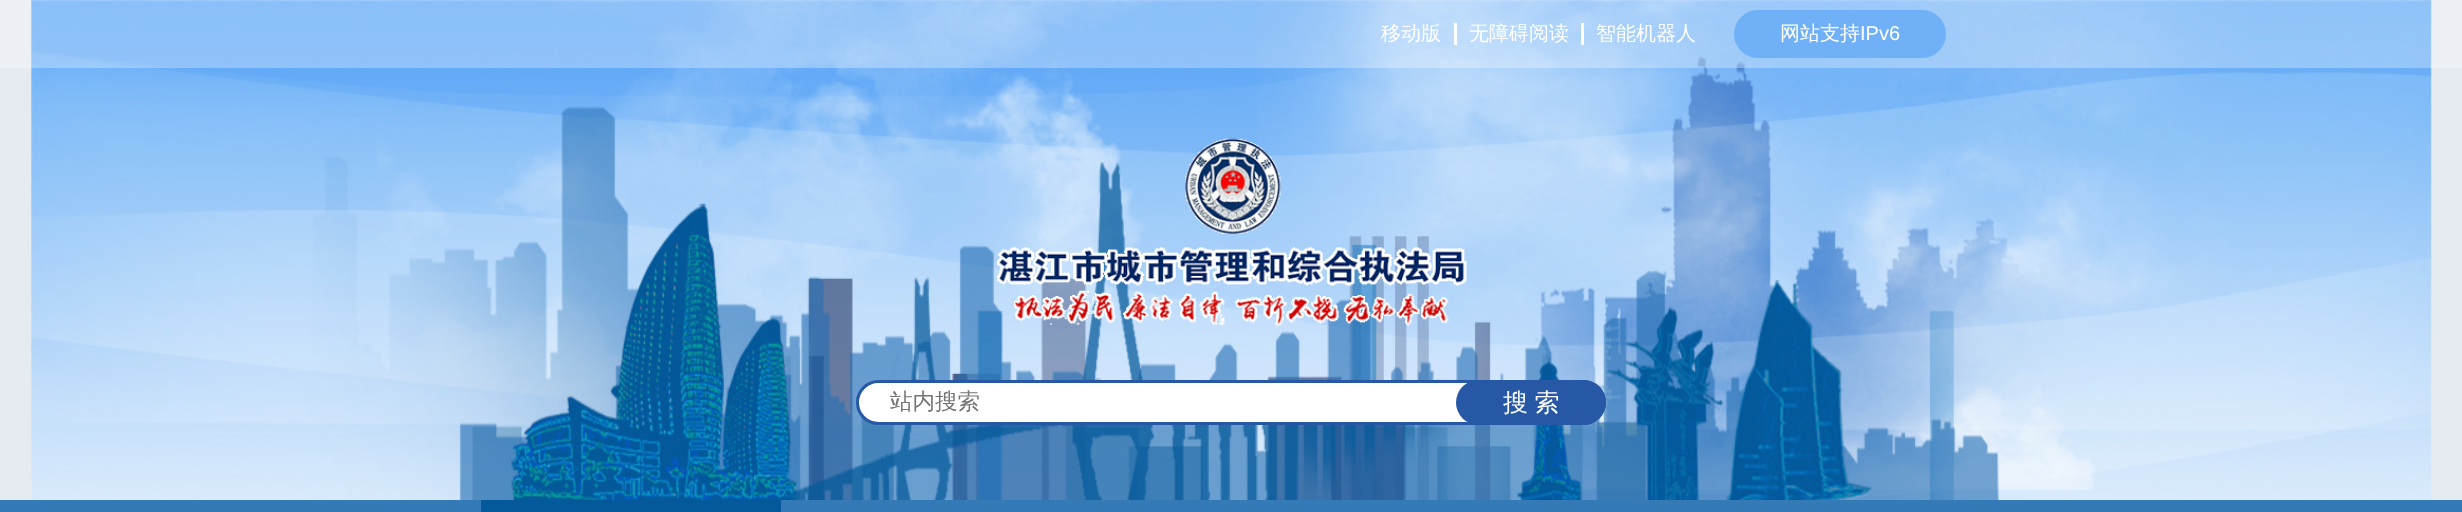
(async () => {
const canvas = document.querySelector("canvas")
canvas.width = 2462
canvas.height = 512
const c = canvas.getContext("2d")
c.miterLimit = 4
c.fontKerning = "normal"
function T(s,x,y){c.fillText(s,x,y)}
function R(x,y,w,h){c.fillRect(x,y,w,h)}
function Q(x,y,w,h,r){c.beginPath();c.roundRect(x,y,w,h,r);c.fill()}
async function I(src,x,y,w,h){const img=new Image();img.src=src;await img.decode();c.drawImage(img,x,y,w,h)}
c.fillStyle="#e6ebf2"
R(0,0,2462,512)
await I("1.png",31,0,2401,500)
c.fillStyle="#ffffff4d"
R(0,0,2462,68)
c.font="500 20px WenQuanYi Zen Hei"
c.fillStyle="#fff"
T("移动版",1381,40)
R(1454,23,3,22)
T("无障碍阅读",1469,40)
R(1581,23,3,22)
T("智能机器人",1596,40)
c.fillStyle="#6fb0f7"
Q(1734,10,212,48,24)
c.fillStyle="#fff"
T("网站支持",1780,40)
c.font="20px Liberation Sans"
T("IPv6",1860,40)
await I("2.png",997,138,470,188)
c.beginPath()
c.roundRect(857.5,381.5,747,42,21)
c.fill()
c.strokeStyle="#2658a5"
c.lineWidth=3
c.stroke()
c.font="500 22.5px WenQuanYi Zen Hei"
c.fillStyle="#757575"
T("站内搜索",890,409)
c.fillStyle="#2658a5"
Q(1456,380,150,45,22.5)
c.wordSpacing="-1px"
c.font="500 25px WenQuanYi Zen Hei"
c.fillStyle="#fff"
T("搜 索",1503,411)
c.fillStyle="#337ab7"
R(0,500,2462,12)
c.fillStyle="#04599a"
R(481,500,300,12)
})()
